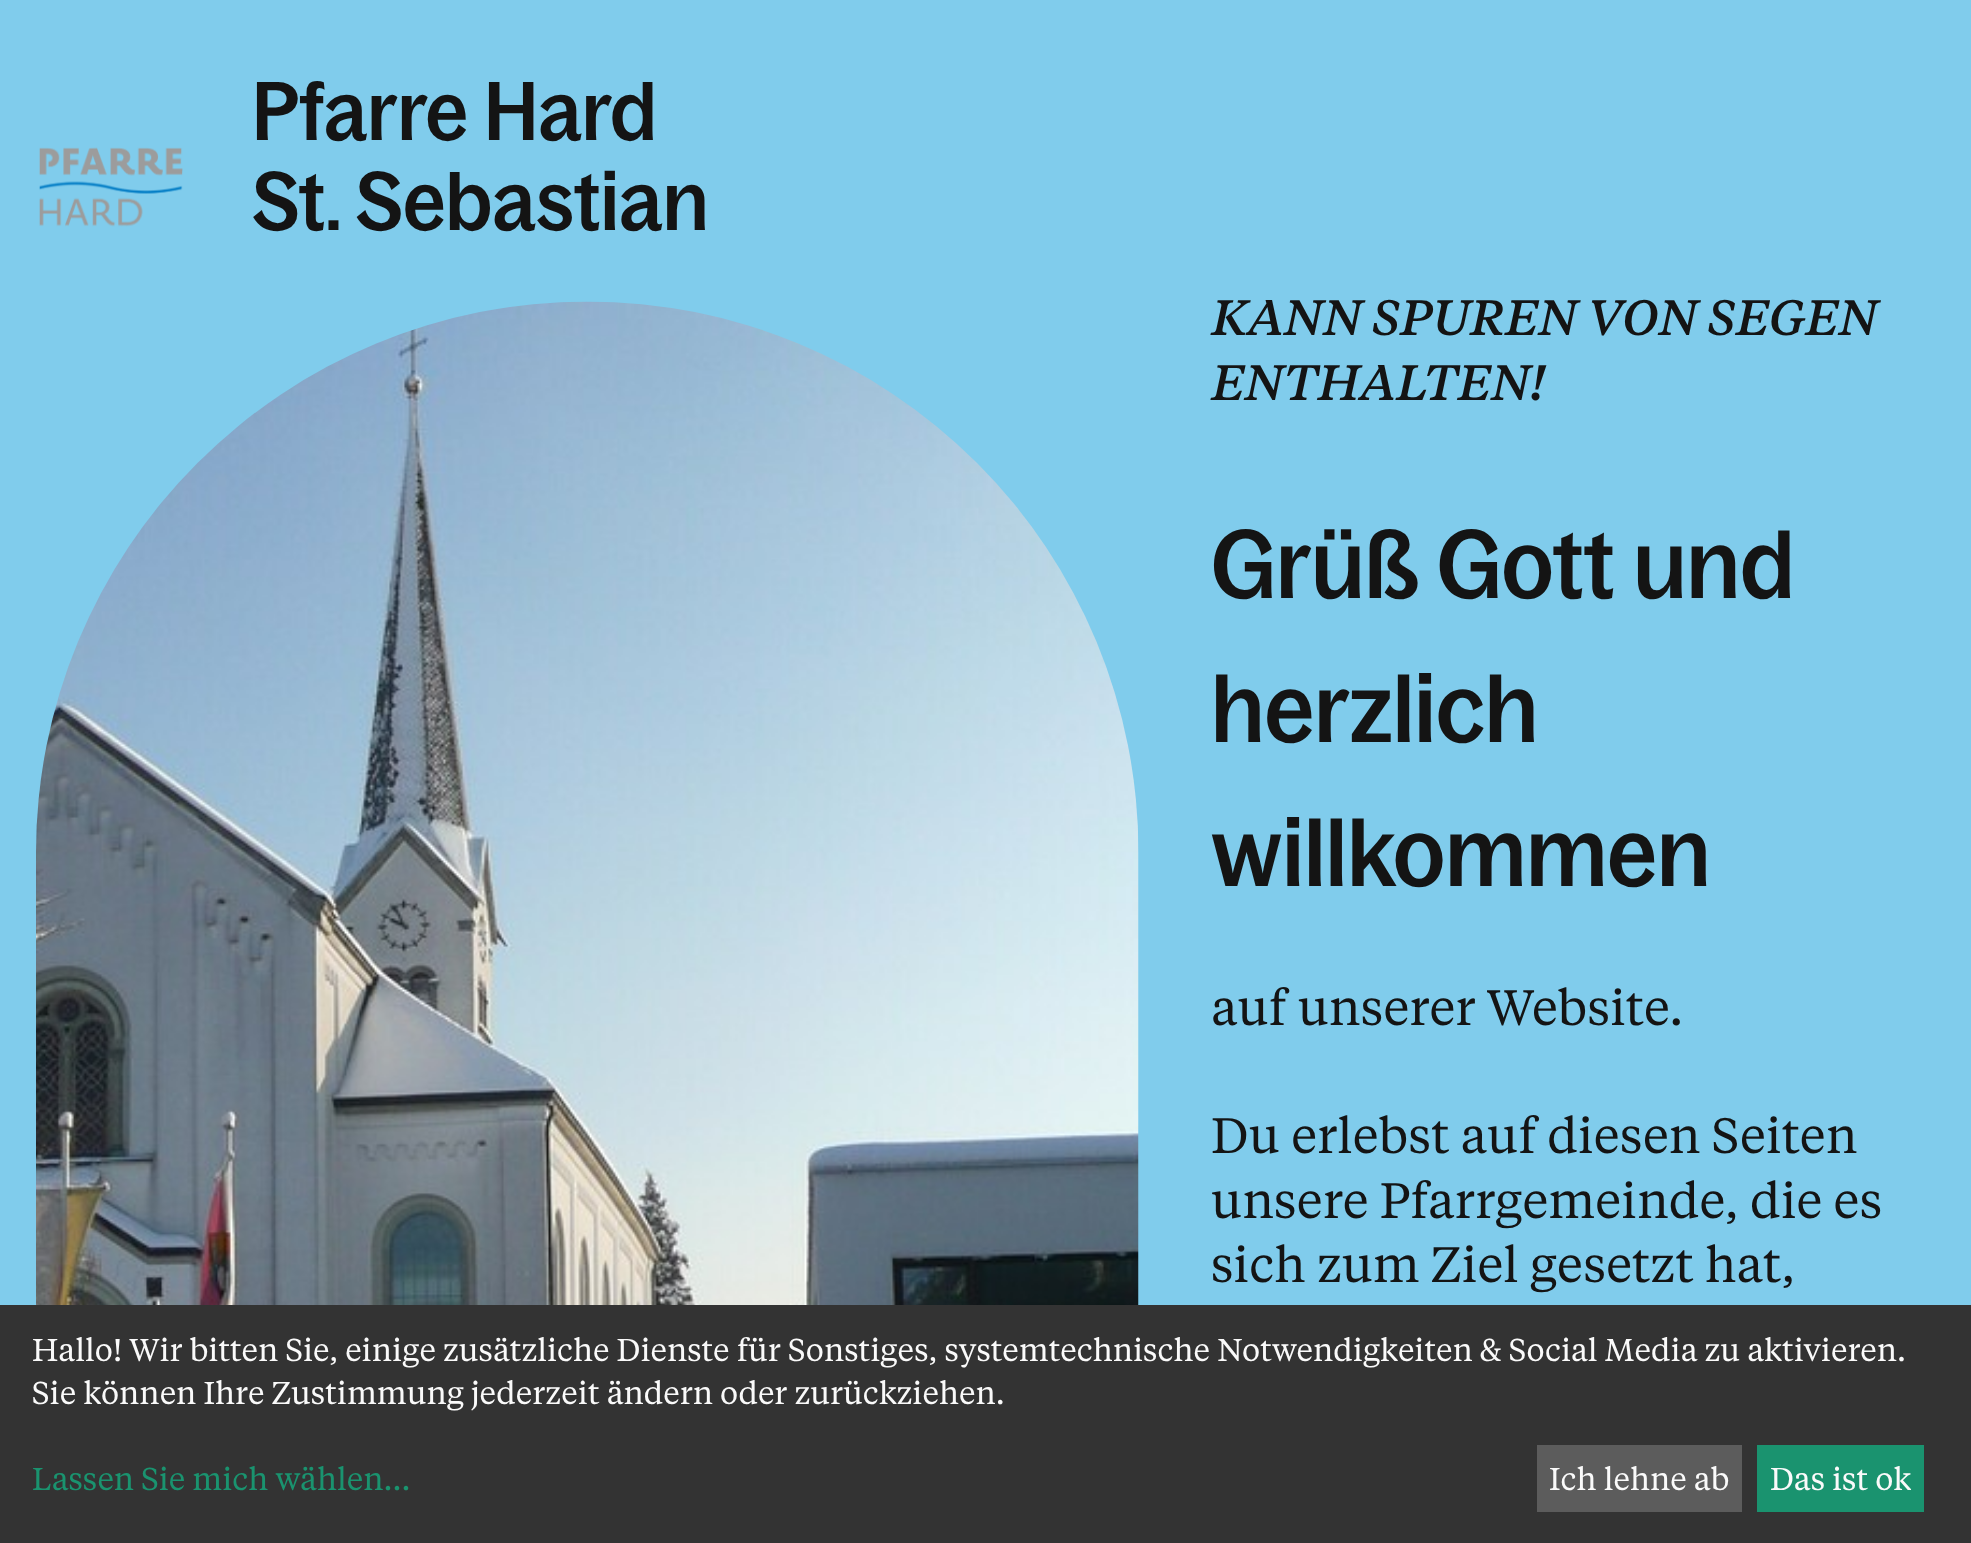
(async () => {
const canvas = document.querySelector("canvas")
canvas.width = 1971
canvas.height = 1543
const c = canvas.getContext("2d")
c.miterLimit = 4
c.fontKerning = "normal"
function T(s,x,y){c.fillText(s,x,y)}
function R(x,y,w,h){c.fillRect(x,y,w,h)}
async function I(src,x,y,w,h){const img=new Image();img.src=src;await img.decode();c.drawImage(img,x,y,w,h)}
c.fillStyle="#80ccec"
R(0,0,1971,1543)
c.font="500 81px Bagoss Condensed"
c.fillStyle="#141414"
T("Pfarre Hard",252,140)
await I("1.png",39,147,144,80)
T("St. Sebastian",252,230)
await I("2.png",36,301,1103,1004)
c.font="italic 500 49.5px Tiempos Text"
T("KANN SPUREN VON SEGEN",1211,335)
T("ENTHALTEN!",1211,400)
c.font="500 94.5px Bagoss Condensed"
T("Grüß Gott und",1211,598)
T("herzlich",1211,742)
T("willkommen",1211,886)
c.font="49.5px Tiempos Text"
T("auf unserer Website.",1211,1025)
T("Du erlebst auf diesen Seiten",1211,1153)
T("unsere Pfarrgemeinde, die es",1211,1218)
T("sich zum Ziel gesetzt hat,",1211,1282)
c.fillStyle="#333"
R(0,1305,1971,238)
c.font="31.5px Tiempos Text"
c.fillStyle="#fafafa"
T("Hallo! Wir bitten Sie, einige zusätzliche Dienste für Sonstiges, systemtechnische Notwendigkeiten & Social Media zu aktivieren.",32,1361)
T("Sie können Ihre Zustimmung jederzeit ändern oder zurückziehen.",32,1404)
c.fillStyle="#1a936f"
T("Lassen Sie mich wählen...",32,1490)
c.fillStyle="#5c5c5c"
R(1537,1445,205,67)
c.fillStyle="#fafafa"
T("Ich lehne ab",1549,1490)
c.fillStyle="#1a936f"
R(1757,1445,167,67)
c.fillStyle="#fafafa"
T("Das ist ok",1770,1490)
})()
